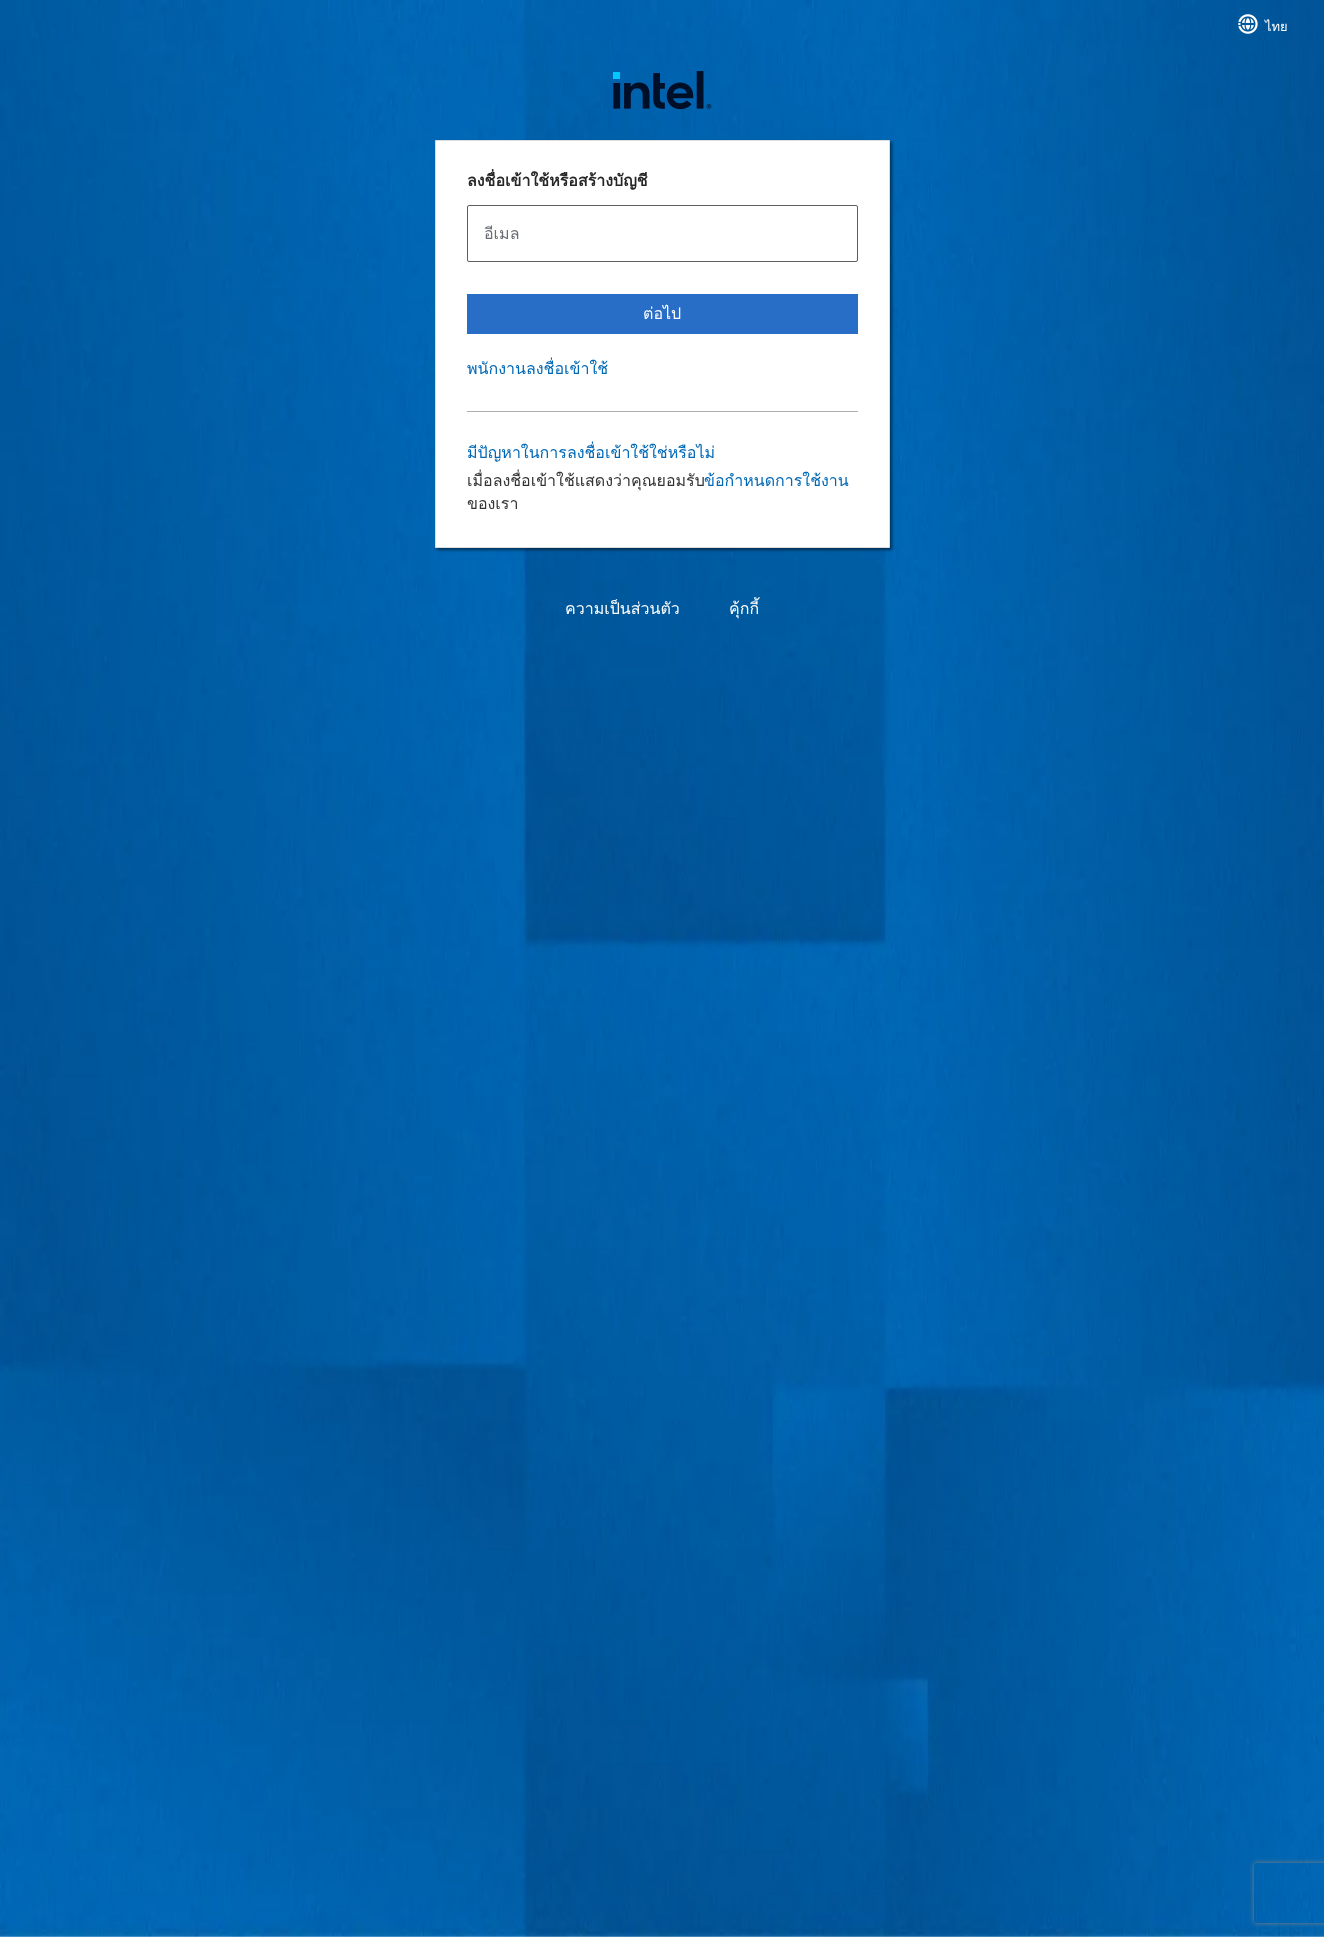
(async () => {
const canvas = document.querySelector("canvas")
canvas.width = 1324
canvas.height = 1937
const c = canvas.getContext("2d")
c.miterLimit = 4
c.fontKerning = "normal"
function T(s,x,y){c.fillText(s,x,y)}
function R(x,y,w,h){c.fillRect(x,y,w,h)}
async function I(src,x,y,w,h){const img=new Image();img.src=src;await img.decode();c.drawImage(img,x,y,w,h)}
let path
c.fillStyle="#fff"
R(0,0,1324,1937)
await I("1.png",0,0,1324,1937)
await I("2.png",1238,14,20,20)
c.font="13px Loma"
T("ไทย",1265,31)
await I("3.png",613,71,99,39)
c.fillStyle="#00000080"
c.filter="blur(1.5px)"
c.beginPath()
c.rect(437,142,455,408)
c.fill()
c.filter="none"
c.fillStyle="#fff"
c.beginPath()
c.rect(435.5,140.5,454,407)
c.fill()
c.strokeStyle="#ddd"
c.stroke()
c.font="bold 16px Loma"
c.fillStyle="#262626"
T("ลงชื่อเข้าใช้หรือสร้างบัญชี",467,186)
c.beginPath()
c.roundRect(467.5,205.5,390,56,1.5)
c.strokeStyle="#605e5c"
c.stroke()
c.font="16px Loma"
c.fillStyle="#6a6d75"
T("อีเมล",484,239)
c.fillStyle="#296ec6"
R(467,294,391,40)
c.fillStyle="#fff"
T("ต่อไป",643,319)
c.fillStyle="#0068b5"
T("พนักงานลงชื่อเข้าใช้",467,374)
c.fillStyle="#aeaeae"
R(467,411,391,1)
c.fillStyle="#0068b5"
T("มีปัญหาในการลงชื่อเข้าใช้ใช่หรือไม่",467,458)
c.fillStyle="#333"
T("เมื่อลงชื่อเข้าใช้แสดงว่าคุณยอมรับ",467,486)
c.fillStyle="#0068b5"
T("ข้อกำหนดการใช้งาน",704,486)
c.fillStyle="#333"
T("ของเรา",467,509)
c.fillStyle="#fff"
T("ความเป็นส่วนตัว",565,614)
T("คุ้กกี้",729,614)
c.save()
path = new Path2D("M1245 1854h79v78h-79zm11 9h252c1 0 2 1 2 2v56c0 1-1 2-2 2h-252c-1 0-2-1-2-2v-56c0-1 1-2 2-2z")
c.clip(path,"evenodd")
c.fillStyle="#808080"
c.filter="blur(2.5px)"
c.beginPath()
c.roundRect(1254,1863,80,60,2)
c.fill()
c.filter="none"
c.restore()
})()
